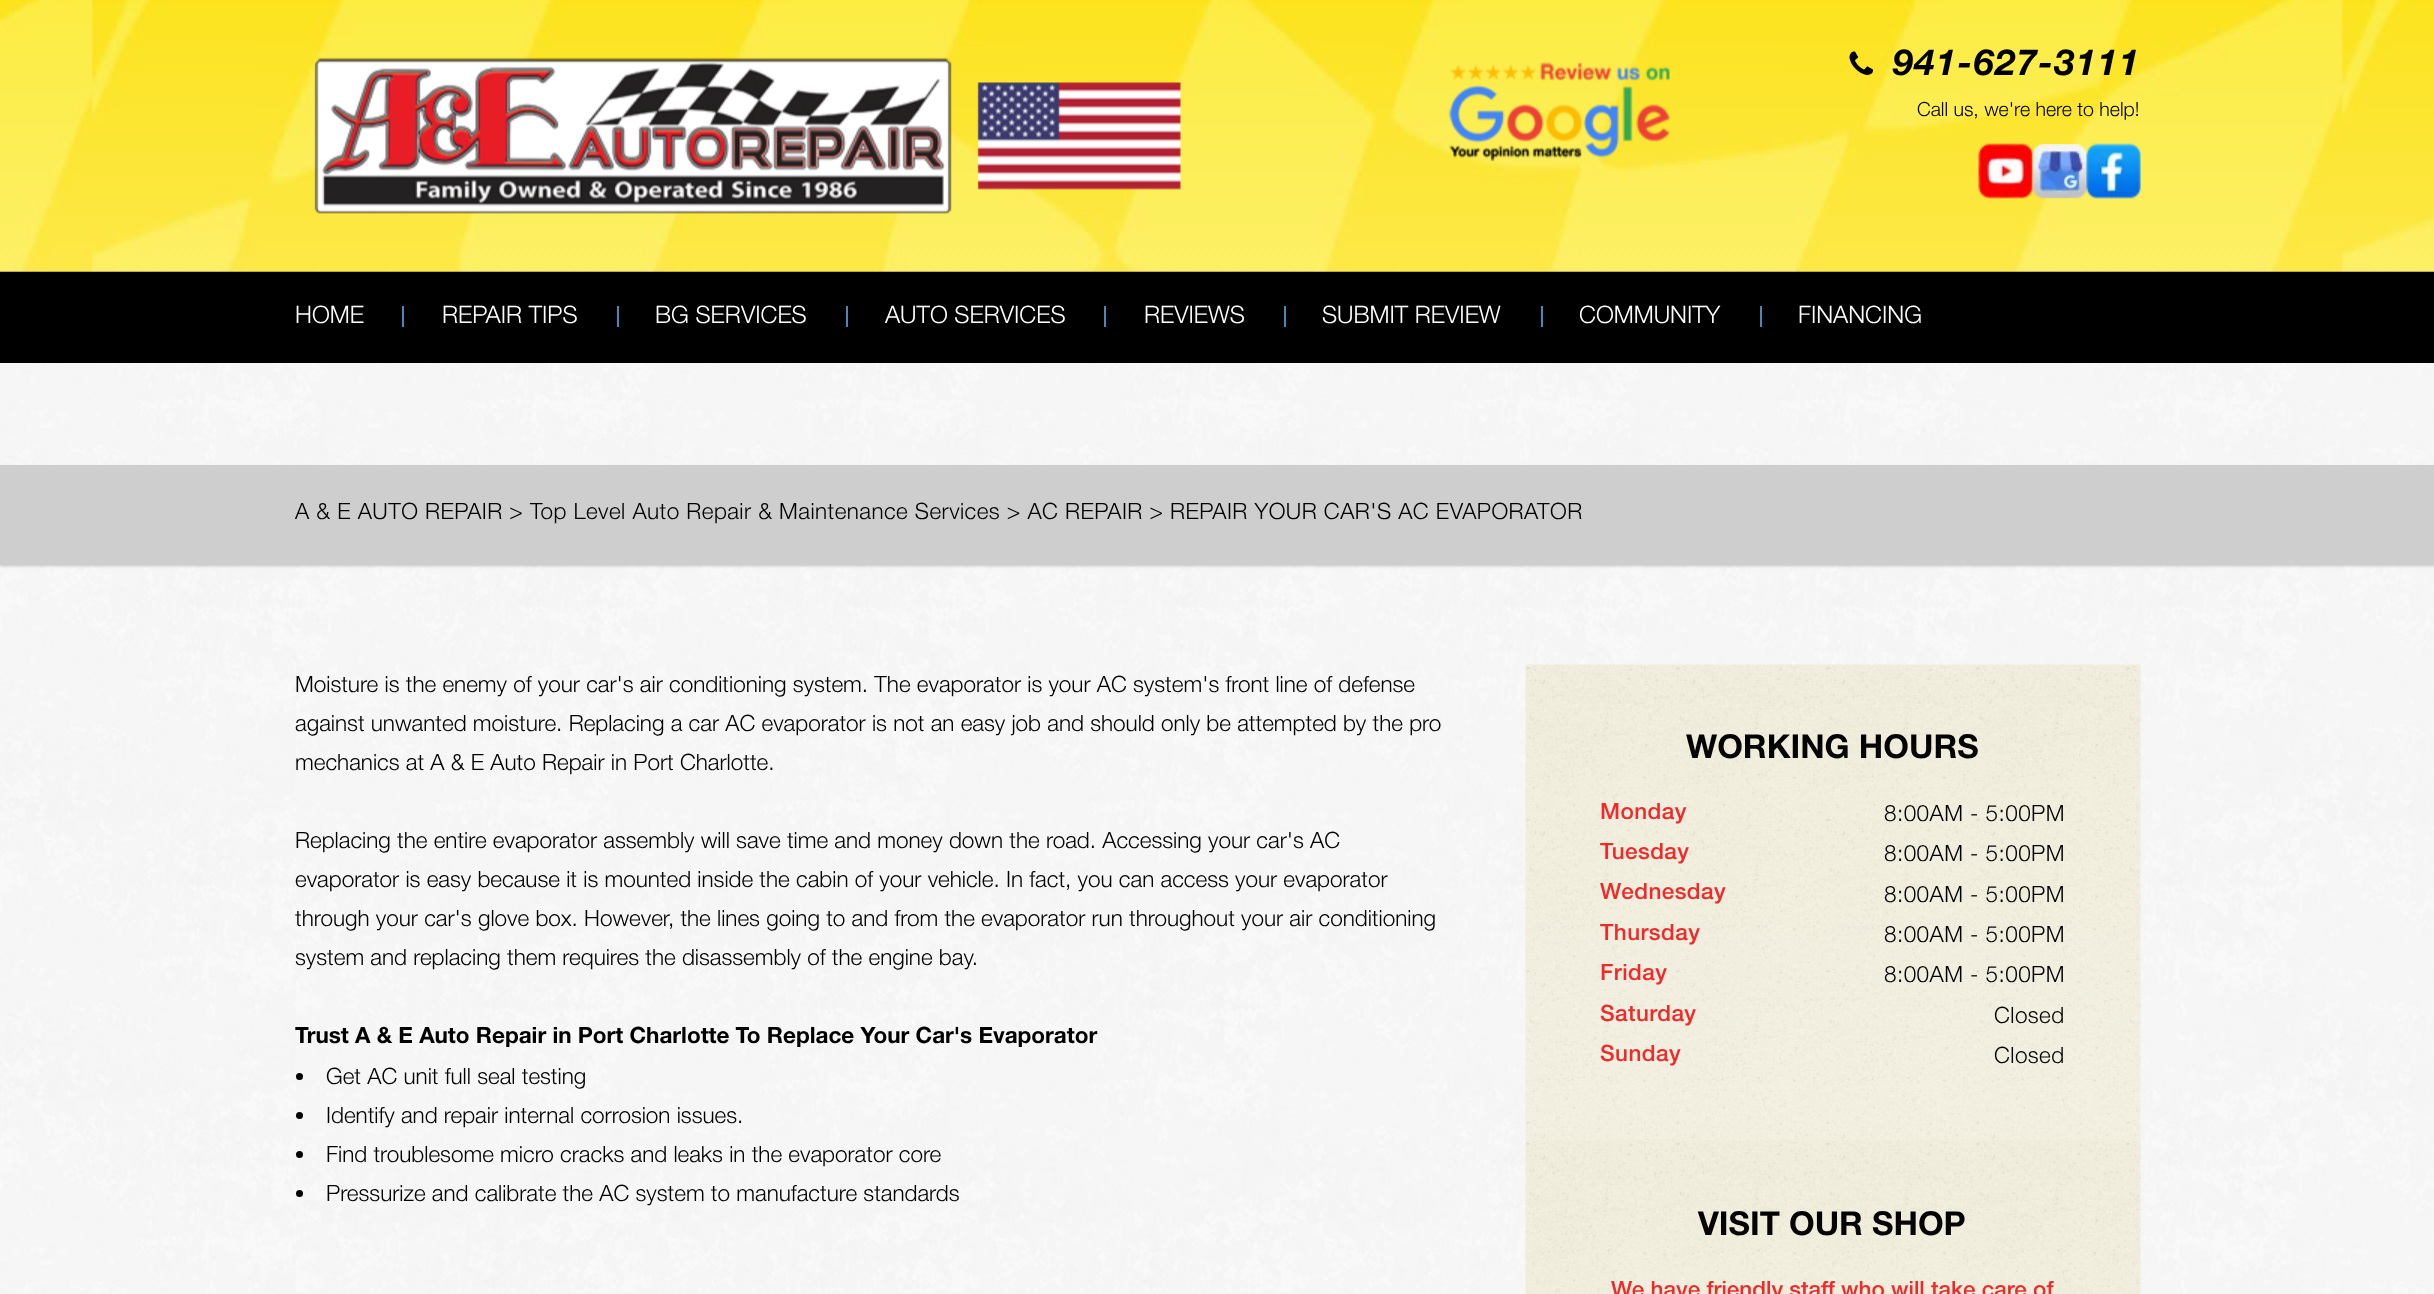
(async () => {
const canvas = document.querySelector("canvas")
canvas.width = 2434
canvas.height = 1294
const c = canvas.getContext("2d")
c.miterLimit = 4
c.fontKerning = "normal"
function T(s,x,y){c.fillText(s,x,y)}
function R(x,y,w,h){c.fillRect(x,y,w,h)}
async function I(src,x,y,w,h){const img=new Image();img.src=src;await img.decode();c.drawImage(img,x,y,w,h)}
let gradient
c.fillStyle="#fff"
R(0,0,2434,1294)
await I("1.png",0,271,2434,1)
await I("2.png",0,0,2434,272)
gradient = c.createLinearGradient(1217,0,1217,272)
gradient.addColorStop(0,"#ffffff05")
gradient.addColorStop(1,"#ffffff33")
c.fillStyle = gradient
R(0,2,2434,270)
await I("3.png",314,57,638,157)
await I("4.png",977,82,204,108)
await I("5.png",1448,62,222,100)
await I("6.png",1849,51,24,24)
c.letterSpacing="1.5px"
c.font="italic bold 36px 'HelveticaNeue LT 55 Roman'"
c.fillStyle="#000"
T("941-627-3111",1893,75)
c.letterSpacing="0px"
c.font="300 19.5px Helvetica Neue"
T("Call us, we're here to help!",1917,116)
await I("7.png",1978,143,55,56)
await I("8.png",2032,144,55,55)
await I("9.png",2086,143,55,56)
R(0,272,2434,91)
c.font="300 24px Helvetica Neue"
c.fillStyle="#fff"
T("HOME",295,323)
c.fillStyle="#4989ba"
R(402,306,2,21)
c.fillStyle="#fff"
T("REPAIR TIPS",442,323)
c.fillStyle="#4989ba"
R(617,306,2,21)
c.fillStyle="#fff"
T("BG SERVICES",655,323)
c.fillStyle="#4989ba"
R(846,306,2,21)
c.fillStyle="#fff"
T("AUTO SERVICES",885,323)
c.fillStyle="#4989ba"
R(1104,306,2,21)
c.fillStyle="#fff"
T("REVIEWS",1144,323)
c.fillStyle="#4989ba"
R(1284,306,2,21)
c.fillStyle="#fff"
T("SUBMIT REVIEW",1322,323)
c.fillStyle="#4989ba"
R(1541,306,2,21)
c.fillStyle="#fff"
T("COMMUNITY",1579,323)
c.fillStyle="#4989ba"
R(1760,306,2,21)
c.fillStyle="#fff"
T("FINANCING",1798,323)
await I("10.png",0,363,2434,931)
c.fillStyle="#00000033"
c.filter="blur(1.5px)"
c.beginPath()
c.rect(0,467,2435,99)
c.fill()
c.filter="none"
c.fillStyle="#cecece"
R(0,465,2434,100)
c.letterSpacing="0.45px"
c.font="300 22.5px Helvetica Neue"
c.fillStyle="#000"
T("A & E AUTO REPAIR > Top Level Auto Repair & Maintenance Services > AC REPAIR > REPAIR YOUR CAR'S AC EVAPORATOR",295,519)
await I("11.png",296,665,1151,627)
c.letterSpacing="0px"
T("Moisture is the enemy of your car's air conditioning system. The evaporator is your AC system's front line of defense",295,692)
T("against unwanted moisture. Replacing a car AC evaporator is not an easy job and should only be attempted by the pro",295,731)
T("mechanics at A & E Auto Repair in Port Charlotte.",295,770)
T("Replacing the entire evaporator assembly will save time and money down the road. Accessing your car's AC",295,848)
T("evaporator is easy because it is mounted inside the cabin of your vehicle. In fact, you can access your evaporator",295,887)
T("through your car's glove box. However, the lines going to and from the evaporator run throughout your air conditioning",295,926)
T("system and replacing them requires the disassembly of the engine bay.",295,965)
c.font="bold 22.5px Helvetica Neue"
T("Trust A & E Auto Repair in Port Charlotte To Replace Your Car's Evaporator",295,1043)
c.beginPath()
c.arc(299.5,1076.5,3.5,0,7)
c.fill()
c.font="300 22.5px Helvetica Neue"
T("Get AC unit full seal testing",326,1084)
c.beginPath()
c.arc(299.5,1115.5,3.5,0,7)
c.fill()
T("Identify and repair internal corrosion issues.",326,1123)
c.beginPath()
c.arc(299.5,1154.5,3.5,0,7)
c.fill()
T("Find troublesome micro cracks and leaks in the evaporator core",326,1162)
c.beginPath()
c.arc(299.5,1193.5,3.5,0,7)
c.fill()
T("Pressurize and calibrate the AC system to manufacture standards",326,1201)
await I("12.png",1525,664,616,476)
c.font="bold 33px Helvetica Neue"
T("WORKING HOURS",1686,758)
gradient = c.createLinearGradient(1833,1140,1833,665)
gradient.addColorStop(0,"#ffffff21")
gradient.addColorStop(1,"#ffffff00")
c.fillStyle = gradient
R(1526,744,615,396)
c.letterSpacing="0.45px"
c.font="500 22.5px Helvetica Neue"
c.fillStyle="#ee2a2b"
T("Monday",1600,819)
c.font="300 22.5px Helvetica Neue"
c.fillStyle="#000"
T("8:00AM - 5:00PM",1884,821)
c.font="500 22.5px Helvetica Neue"
c.fillStyle="#ee2a2b"
T("Tuesday",1600,859)
c.font="300 22.5px Helvetica Neue"
c.fillStyle="#000"
T("8:00AM - 5:00PM",1884,861)
c.font="500 22.5px Helvetica Neue"
c.fillStyle="#ee2a2b"
T("Wednesday",1600,899)
c.font="300 22.5px Helvetica Neue"
c.fillStyle="#000"
T("8:00AM - 5:00PM",1884,902)
c.font="500 22.5px Helvetica Neue"
c.fillStyle="#ee2a2b"
T("Thursday",1600,940)
c.font="300 22.5px Helvetica Neue"
c.fillStyle="#000"
T("8:00AM - 5:00PM",1884,942)
c.font="500 22.5px Helvetica Neue"
c.fillStyle="#ee2a2b"
T("Friday",1600,980)
c.font="300 22.5px Helvetica Neue"
c.fillStyle="#000"
T("8:00AM - 5:00PM",1884,982)
c.font="500 22.5px Helvetica Neue"
c.fillStyle="#ee2a2b"
T("Saturday",1600,1021)
c.font="300 22.5px Helvetica Neue"
c.fillStyle="#000"
T("Closed",1994,1023)
c.font="500 22.5px Helvetica Neue"
c.fillStyle="#ee2a2b"
T("Sunday",1600,1061)
c.font="300 22.5px Helvetica Neue"
c.fillStyle="#000"
T("Closed",1994,1063)
await I("13.png",1525,1140,616,154)
c.letterSpacing="0px"
c.font="bold 33px Helvetica Neue"
T("VISIT OUR SHOP",1698,1235)
gradient = c.createLinearGradient(1833,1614,1833,1140)
gradient.addColorStop(0,"#ffffff21")
gradient.addColorStop(1,"#ffffff00")
c.fillStyle = gradient
R(1611,1219,443,75)
c.font="500 22.5px Helvetica Neue"
c.fillStyle="#ee2a2b"
T("We have friendly staff who will take care of",1611,1297)
})()
